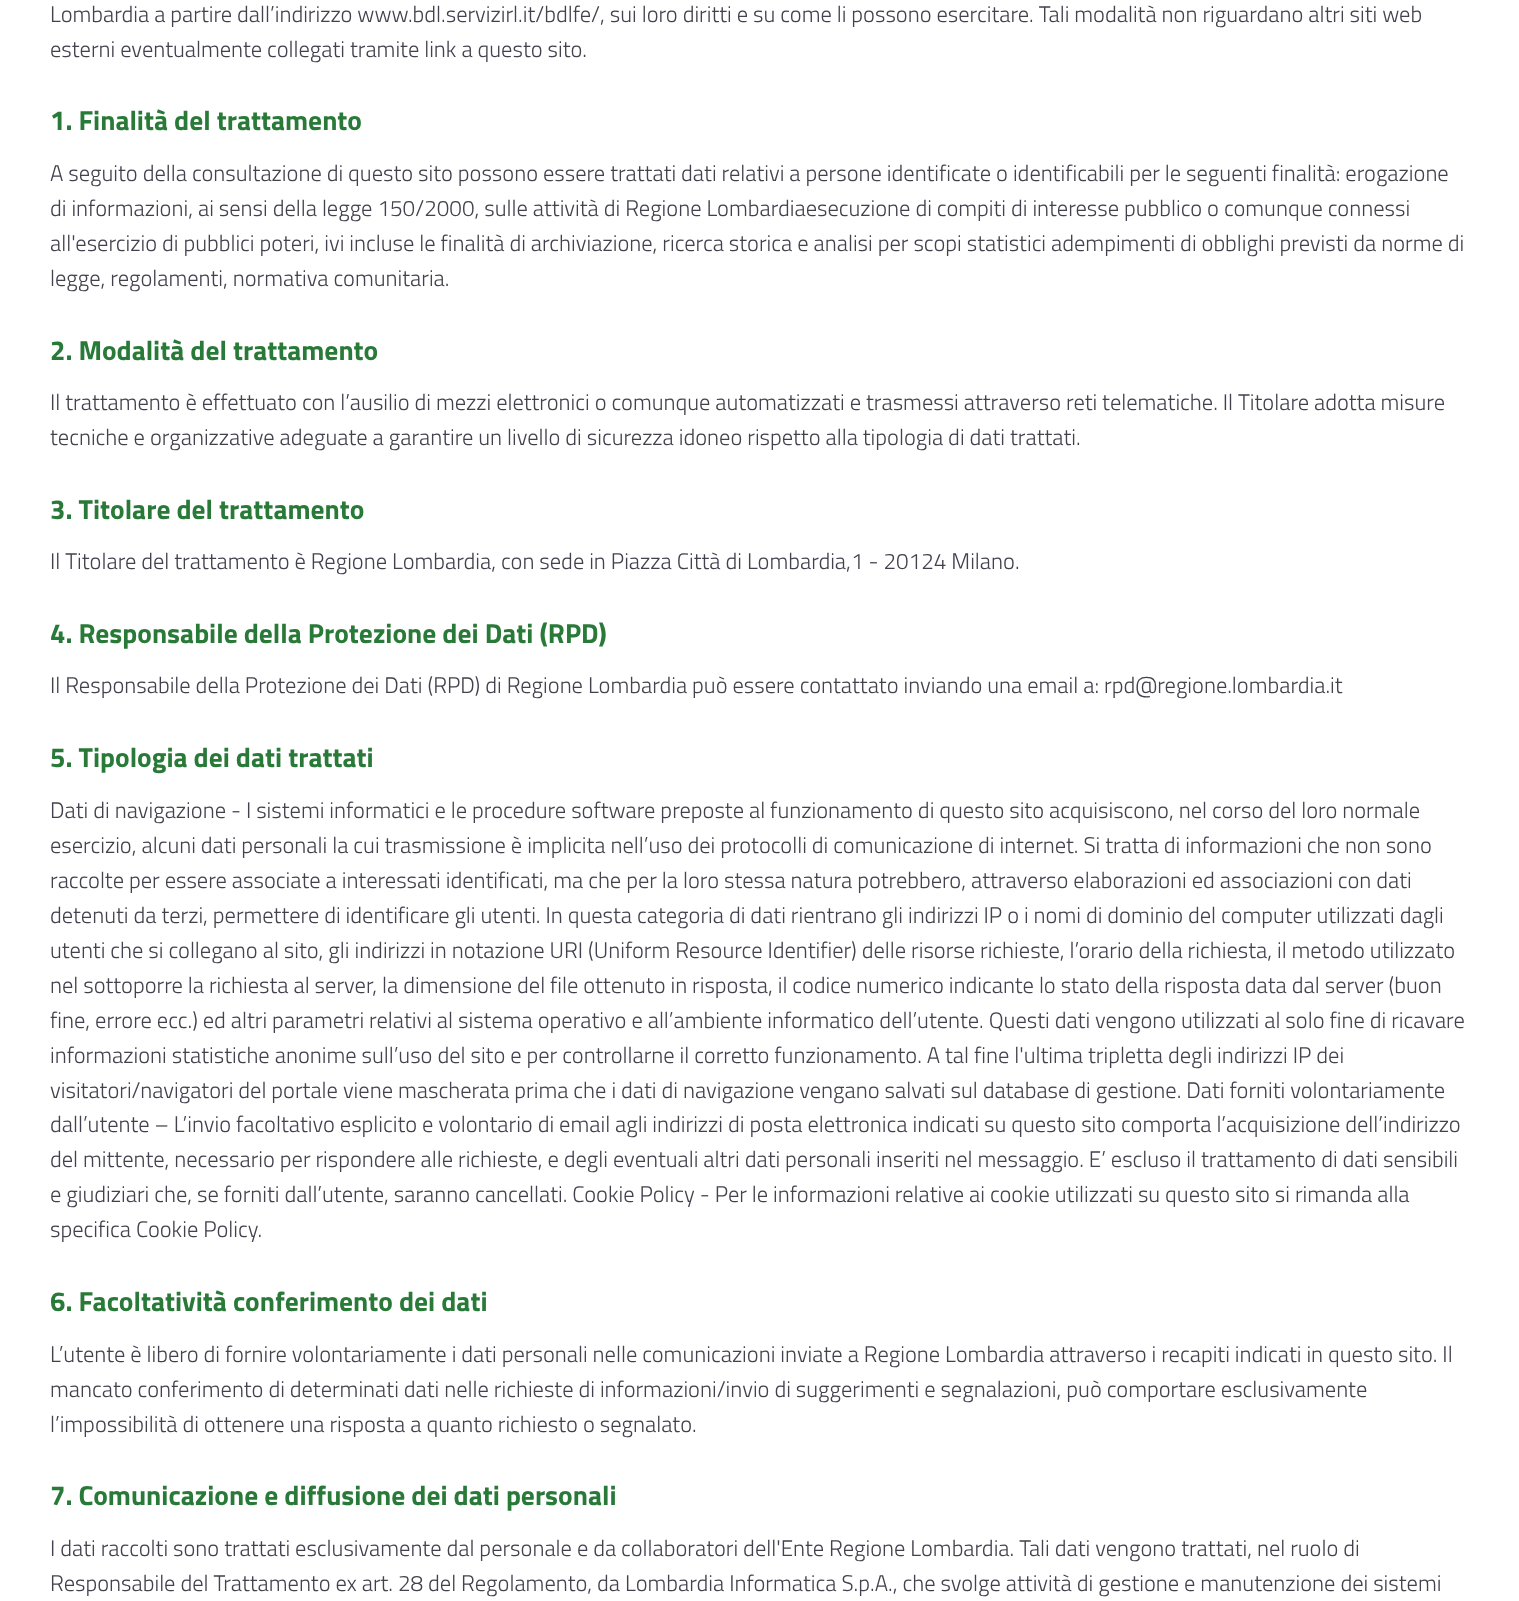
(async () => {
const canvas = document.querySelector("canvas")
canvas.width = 1519
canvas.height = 1601
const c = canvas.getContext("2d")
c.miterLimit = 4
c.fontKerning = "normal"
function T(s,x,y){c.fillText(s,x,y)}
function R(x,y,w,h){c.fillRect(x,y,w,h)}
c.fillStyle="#fff"
R(0,0,1519,1601)
c.font="300 22.5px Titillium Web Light"
c.fillStyle="#42414d"
T("Lombardia a partire dall’indirizzo www.bdl.servizirl.it/bdlfe/, sui loro diritti e su come li possono esercitare. Tali modalità non riguardano altri siti web",50,22)
T("esterni eventualmente collegati tramite link a questo sito.",50,57)
c.font="bold 27.5px Titillium Web"
c.fillStyle="#297a38"
T("1. Finalità del trattamento",50,130)
c.font="300 22.5px Titillium Web Light"
c.fillStyle="#42414d"
T("A seguito della consultazione di questo sito possono essere trattati dati relativi a persone identificate o identificabili per le seguenti finalità: erogazione",50,181)
T("di informazioni, ai sensi della legge 150/2000, sulle attività di Regione Lombardiaesecuzione di compiti di interesse pubblico o comunque connessi",50,216)
T("all'esercizio di pubblici poteri, ivi incluse le finalità di archiviazione, ricerca storica e analisi per scopi statistici adempimenti di obblighi previsti da norme di",50,251)
T("legge, regolamenti, normativa comunitaria.",50,286)
c.font="bold 27.5px Titillium Web"
c.fillStyle="#297a38"
T("2. Modalità del trattamento",50,360)
c.font="300 22.5px Titillium Web Light"
c.fillStyle="#42414d"
T("Il trattamento è effettuato con l’ausilio di mezzi elettronici o comunque automatizzati e trasmessi attraverso reti telematiche. Il Titolare adotta misure",50,410)
T("tecniche e organizzative adeguate a garantire un livello di sicurezza idoneo rispetto alla tipologia di dati trattati.",50,445)
c.font="bold 27.5px Titillium Web"
c.fillStyle="#297a38"
T("3. Titolare del trattamento",50,519)
c.font="300 22.5px Titillium Web Light"
c.fillStyle="#42414d"
T("Il Titolare del trattamento è Regione Lombardia, con sede in Piazza Città di Lombardia,1 - 20124 Milano.",50,569)
c.font="bold 27.5px Titillium Web"
c.fillStyle="#297a38"
T("4. Responsabile della Protezione dei Dati (RPD)",50,643)
c.font="300 22.5px Titillium Web Light"
c.fillStyle="#42414d"
T("Il Responsabile della Protezione dei Dati (RPD) di Regione Lombardia può essere contattato inviando una email a: rpd@regione.lombardia.it",50,693)
c.font="bold 27.5px Titillium Web"
c.fillStyle="#297a38"
T("5. Tipologia dei dati trattati",50,767)
c.font="300 22.5px Titillium Web Light"
c.fillStyle="#42414d"
T("Dati di navigazione - I sistemi informatici e le procedure software preposte al funzionamento di questo sito acquisiscono, nel corso del loro normale",50,818)
T("esercizio, alcuni dati personali la cui trasmissione è implicita nell’uso dei protocolli di comunicazione di internet. Si tratta di informazioni che non sono",50,853)
T("raccolte per essere associate a interessati identificati, ma che per la loro stessa natura potrebbero, attraverso elaborazioni ed associazioni con dati",50,888)
T("detenuti da terzi, permettere di identificare gli utenti. In questa categoria di dati rientrano gli indirizzi IP o i nomi di dominio del computer utilizzati dagli",50,923)
T("utenti che si collegano al sito, gli indirizzi in notazione URI (Uniform Resource Identifier) delle risorse richieste, l’orario della richiesta, il metodo utilizzato",50,958)
T("nel sottoporre la richiesta al server, la dimensione del file ottenuto in risposta, il codice numerico indicante lo stato della risposta data dal server (buon",50,993)
T("fine, errore ecc.) ed altri parametri relativi al sistema operativo e all’ambiente informatico dell’utente. Questi dati vengono utilizzati al solo fine di ricavare",50,1028)
T("informazioni statistiche anonime sull’uso del sito e per controllarne il corretto funzionamento. A tal fine l'ultima tripletta degli indirizzi IP dei",50,1063)
T("visitatori/navigatori del portale viene mascherata prima che i dati di navigazione vengano salvati sul database di gestione. Dati forniti volontariamente",50,1098)
T("dall’utente – L’invio facoltativo esplicito e volontario di email agli indirizzi di posta elettronica indicati su questo sito comporta l’acquisizione dell’indirizzo",50,1132)
T("del mittente, necessario per rispondere alle richieste, e degli eventuali altri dati personali inseriti nel messaggio. E’ escluso il trattamento di dati sensibili",50,1167)
T("e giudiziari che, se forniti dall’utente, saranno cancellati. Cookie Policy - Per le informazioni relative ai cookie utilizzati su questo sito si rimanda alla",50,1202)
T("specifica Cookie Policy.",50,1237)
c.font="bold 27.5px Titillium Web"
c.fillStyle="#297a38"
T("6. Facoltatività conferimento dei dati",50,1311)
c.font="300 22.5px Titillium Web Light"
c.fillStyle="#42414d"
T("L’utente è libero di fornire volontariamente i dati personali nelle comunicazioni inviate a Regione Lombardia attraverso i recapiti indicati in questo sito. Il",50,1362)
T("mancato conferimento di determinati dati nelle richieste di informazioni/invio di suggerimenti e segnalazioni, può comportare esclusivamente",50,1397)
T("l’impossibilità di ottenere una risposta a quanto richiesto o segnalato.",50,1432)
c.font="bold 27.5px Titillium Web"
c.fillStyle="#297a38"
T("7. Comunicazione e diffusione dei dati personali",50,1505)
c.font="300 22.5px Titillium Web Light"
c.fillStyle="#42414d"
T("I dati raccolti sono trattati esclusivamente dal personale e da collaboratori dell'Ente Regione Lombardia. Tali dati vengono trattati, nel ruolo di",50,1556)
T("Responsabile del Trattamento ex art. 28 del Regolamento, da Lombardia Informatica S.p.A., che svolge attività di gestione e manutenzione dei sistemi",50,1591)
})()
